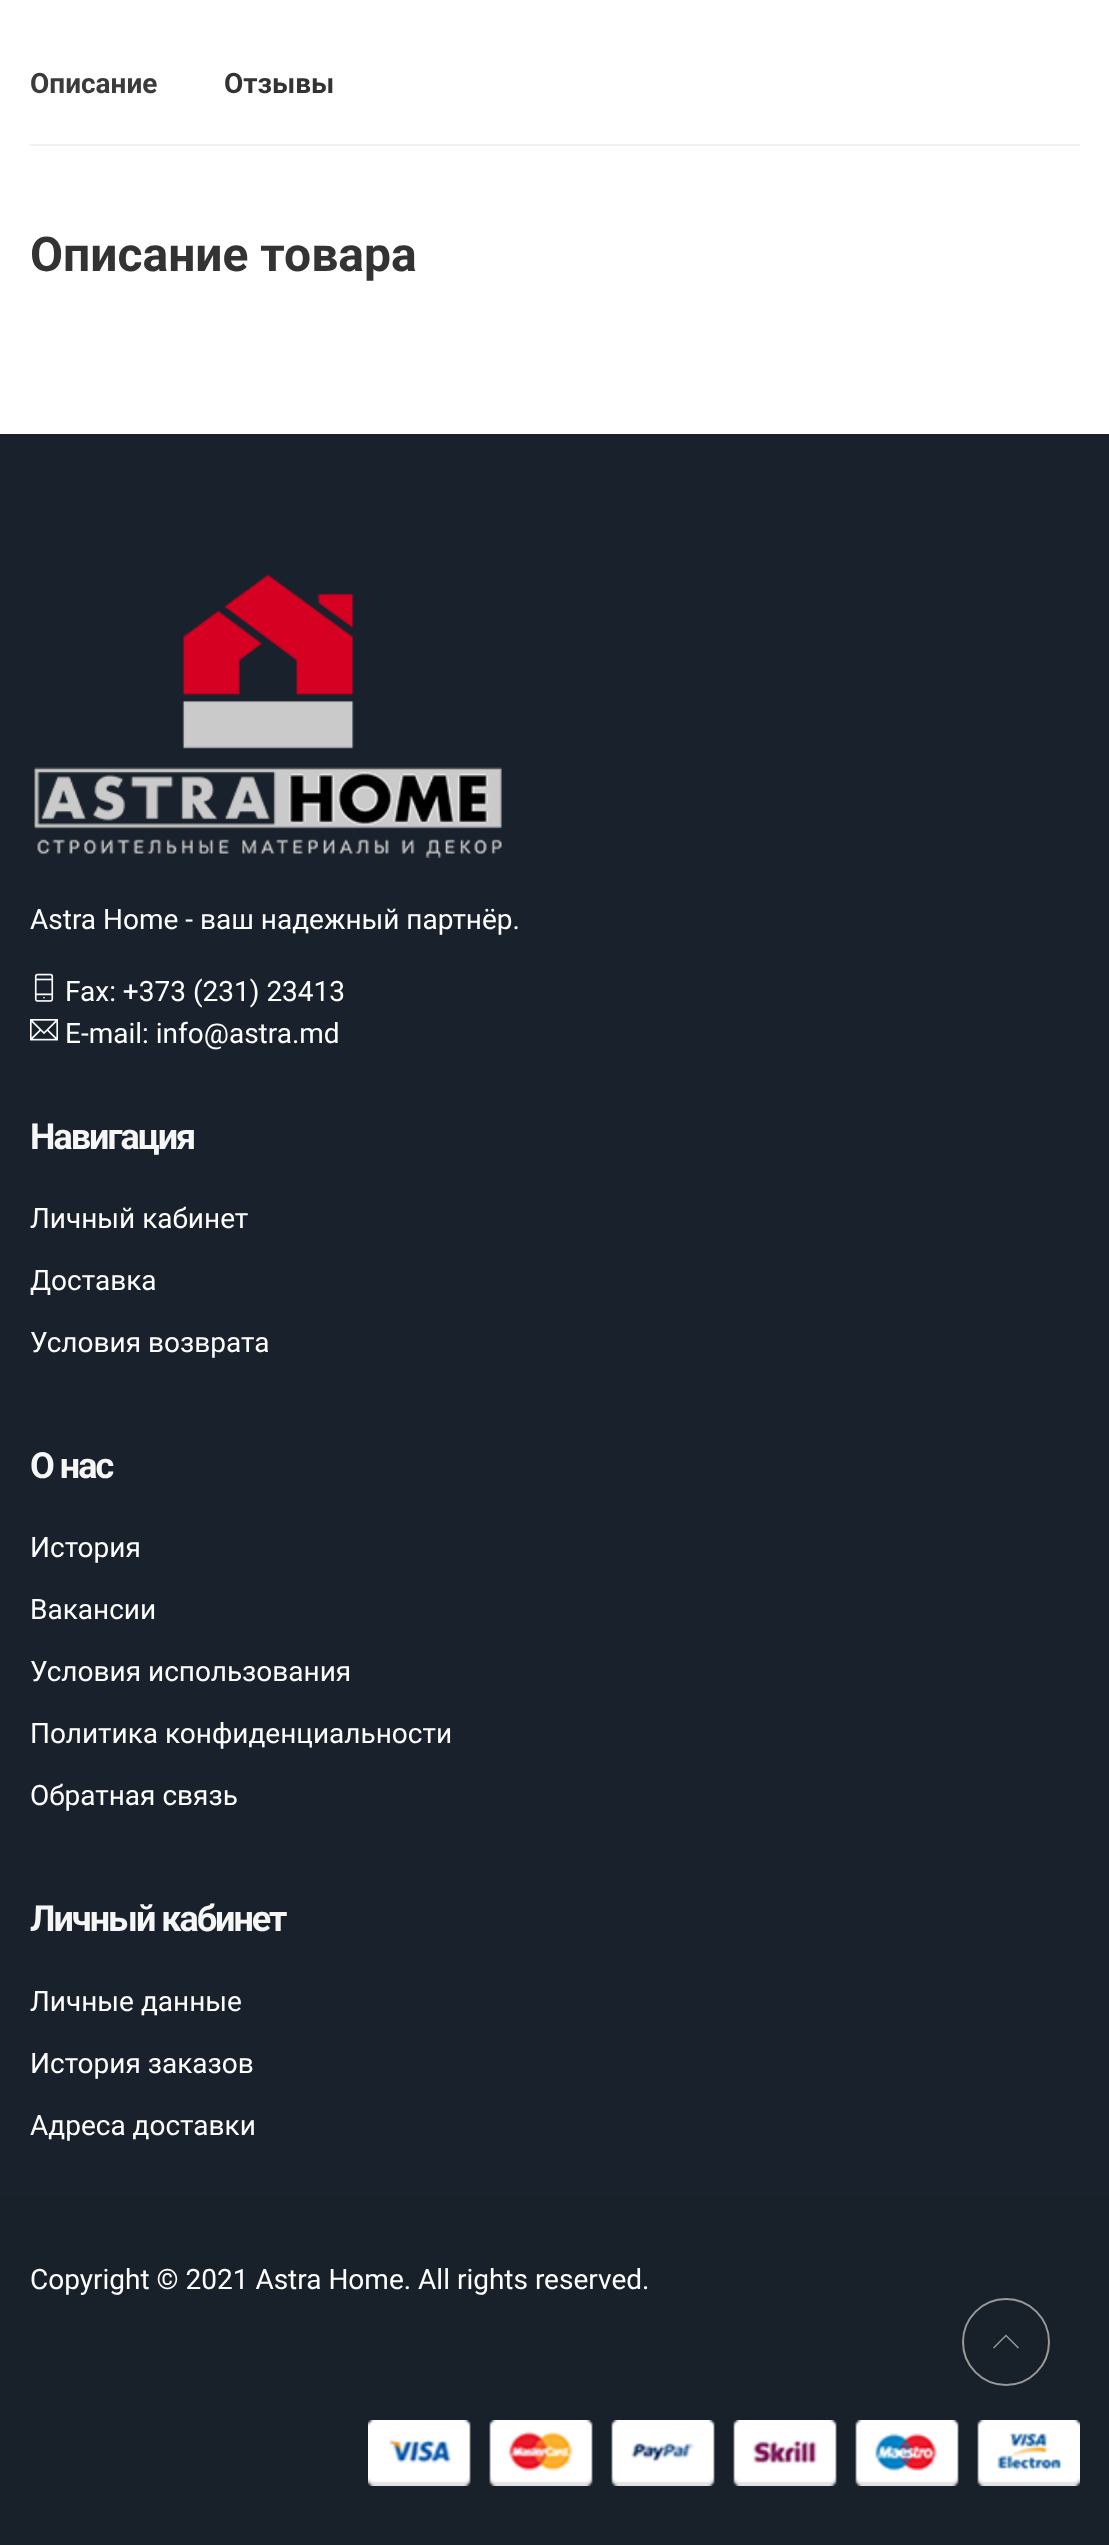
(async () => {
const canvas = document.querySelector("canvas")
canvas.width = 1109
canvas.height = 2545
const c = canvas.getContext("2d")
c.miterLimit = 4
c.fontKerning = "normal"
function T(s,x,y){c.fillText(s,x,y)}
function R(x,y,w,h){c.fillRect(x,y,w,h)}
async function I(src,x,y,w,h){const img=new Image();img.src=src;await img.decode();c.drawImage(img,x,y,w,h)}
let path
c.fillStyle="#fff"
R(0,0,1109,2545)
c.fillStyle="#f0f0f0"
R(30,144,1050,2)
c.font="bold 28px Roboto"
c.fillStyle="#3b3b3b"
T("Описание",30,93)
c.fillStyle="#333"
T("Отзывы",224,93)
c.font="bold 48px Roboto"
T("Описание товара",30,271)
c.fillStyle="#19212c"
R(0,434,1109,1762)
await I("1.png",34,574,468,284)
c.font="28px Roboto"
c.fillStyle="#fff"
T("Astra Home - ваш надежный партнёр.",30,929)
await I("2.png",34,973,20,29)
T("Fax: +373 (231) 23413",65,1001)
await I("3.png",30,1019,28,22)
T("E-mail: info@astra.md",65,1043)
c.letterSpacing="-2px"
c.font="bold 36px Roboto"
c.fillStyle="#f6f6f6"
T("Навигация",30,1149)
c.letterSpacing="0px"
c.font="28px Roboto"
c.fillStyle="#fff"
T("Личный кабинет",30,1228)
T("Доставка",30,1290)
T("Условия возврата",30,1352)
c.letterSpacing="-2px"
c.font="bold 36px Roboto"
c.fillStyle="#f6f6f6"
T("О нас",30,1478)
c.letterSpacing="0px"
c.font="28px Roboto"
c.fillStyle="#fff"
T("История",30,1557)
T("Вакансии",30,1619)
T("Условия использования",30,1681)
T("Политика конфиденциальности",30,1743)
T("Обратная связь",30,1805)
c.letterSpacing="-2px"
c.font="bold 36px Roboto"
c.fillStyle="#f6f6f6"
T("Личный кабинет",30,1931)
c.letterSpacing="0px"
c.font="28px Roboto"
c.fillStyle="#fff"
T("Личные данные",30,2011)
T("История заказов",30,2073)
T("Адреса доставки",30,2135)
c.fillStyle="#18202a"
R(0,2196,1109,349)
c.fillStyle="#fff"
T("Copyright © 2021 Astra Home. All rights reserved.",30,2289)
await I("4.png",368,2420,712,66)
c.beginPath()
c.arc(1006,2342,43,0,7)
c.strokeStyle="#999"
c.lineWidth=2
c.stroke()
c.fillStyle="#999"
path = new Path2D("M1019 2347.5l-1 1l-12-12l-12 12l-1-1l13-13z")
c.fill(path)
})()
